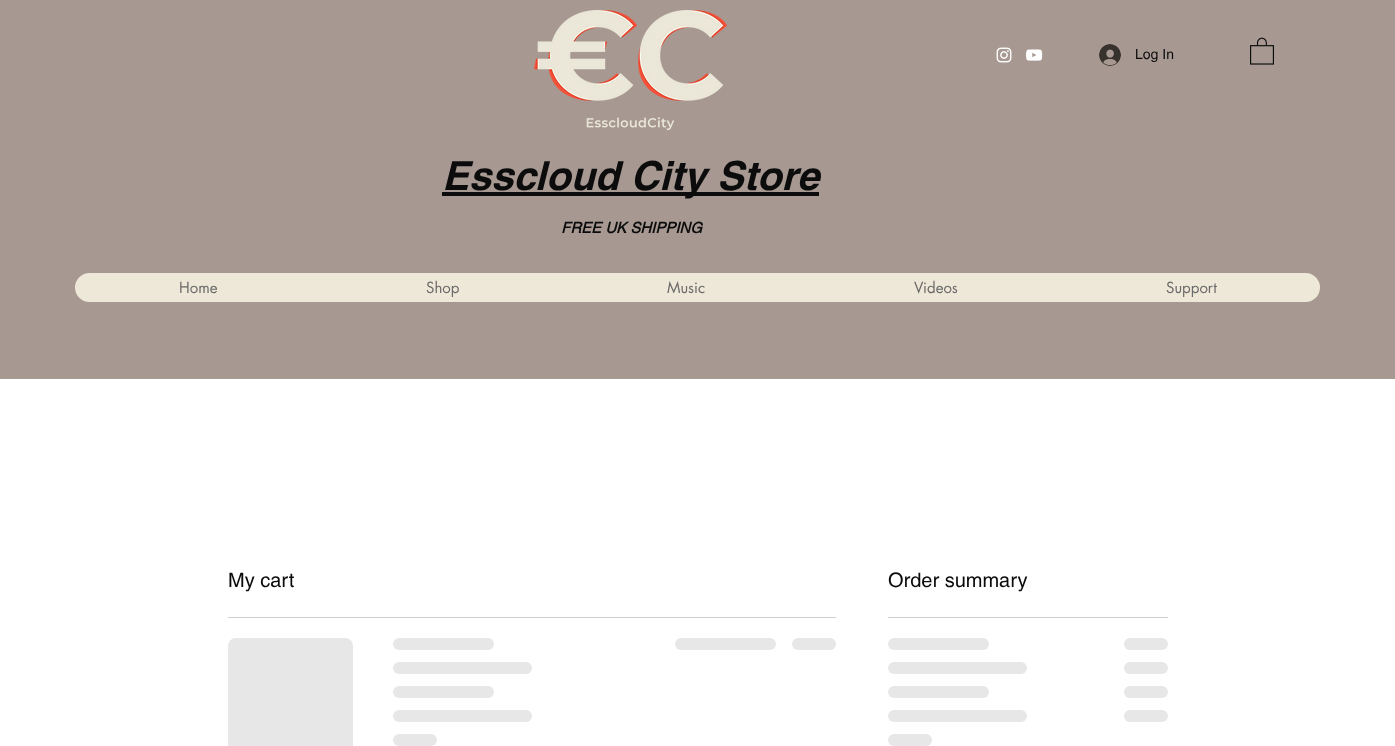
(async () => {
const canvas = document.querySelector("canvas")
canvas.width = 1395
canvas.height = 746
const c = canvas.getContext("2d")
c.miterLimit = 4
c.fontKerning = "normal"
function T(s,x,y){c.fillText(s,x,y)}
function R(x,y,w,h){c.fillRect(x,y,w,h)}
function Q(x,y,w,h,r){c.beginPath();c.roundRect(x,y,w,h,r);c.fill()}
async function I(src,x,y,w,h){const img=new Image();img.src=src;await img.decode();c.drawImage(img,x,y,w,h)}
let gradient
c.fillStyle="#fff"
R(0,0,1395,746)
c.fillStyle="#a79992"
R(0,0,1395,379)
await I("1.png",996,47,16,16)
await I("2.png",1025,49,18,12)
await I("3.png",1099,44,22,22)
c.font="14px helvetica"
c.fillStyle="#0c0c0d"
T("Log In",1135,59)
await I("4.png",1250,37,24,28)
await I("5.png",534,10,193,120)
R(442,192,377,4)
c.font="italic bold 40px helvetica"
T("Esscloud City Store",442,190)
c.font="italic bold 15px 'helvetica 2'"
T("FREE UK SHIPPING",561,233)
c.fillStyle="#eee8d8"
Q(75,273,1245,29,14.5)
c.font="15px futura"
c.fillStyle="#696969"
T("Home",179,293)
T("Shop",426,293)
T("Music",667,293)
T("Videos",914,293)
T("Support",1166,293)
c.fillStyle="#cececf"
R(228,617,608,1)
c.font="20px helvetica"
c.fillStyle="#0c0c0d"
T("My cart",228,587)
gradient = c.createLinearGradient(228,701,728,701)
gradient.addColorStop(.25,"#e7e7e7")
gradient.addColorStop(.37,"#cececf")
gradient.addColorStop(.63,"#e7e7e7")
c.fillStyle = gradient
Q(228,638,125,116,8)
gradient = c.createLinearGradient(393,644,797,644)
gradient.addColorStop(.25,"#e7e7e7")
gradient.addColorStop(.37,"#cececf")
gradient.addColorStop(.63,"#e7e7e7")
c.fillStyle = gradient
Q(393,638,101,12,6)
gradient = c.createLinearGradient(393,668,949,668)
gradient.addColorStop(.25,"#e7e7e7")
gradient.addColorStop(.37,"#cececf")
gradient.addColorStop(.63,"#e7e7e7")
c.fillStyle = gradient
Q(393,662,139,12,6)
gradient = c.createLinearGradient(393,692,797,692)
gradient.addColorStop(.25,"#e7e7e7")
gradient.addColorStop(.37,"#cececf")
gradient.addColorStop(.63,"#e7e7e7")
c.fillStyle = gradient
Q(393,686,101,12,6)
gradient = c.createLinearGradient(393,716,949,716)
gradient.addColorStop(.25,"#e7e7e7")
gradient.addColorStop(.37,"#cececf")
gradient.addColorStop(.63,"#e7e7e7")
c.fillStyle = gradient
Q(393,710,139,12,6)
gradient = c.createLinearGradient(393,740,569,740)
gradient.addColorStop(.25,"#e7e7e7")
gradient.addColorStop(.37,"#cececf")
gradient.addColorStop(.63,"#e7e7e7")
c.fillStyle = gradient
Q(393,734,44,12,6)
gradient = c.createLinearGradient(675,644,1079,644)
gradient.addColorStop(.25,"#e7e7e7")
gradient.addColorStop(.37,"#cececf")
gradient.addColorStop(.63,"#e7e7e7")
c.fillStyle = gradient
Q(675,638,101,12,6)
gradient = c.createLinearGradient(792,644,968,644)
gradient.addColorStop(.25,"#e7e7e7")
gradient.addColorStop(.37,"#cececf")
gradient.addColorStop(.63,"#e7e7e7")
c.fillStyle = gradient
Q(792,638,44,12,6)
c.fillStyle="#cececf"
R(888,617,280,1)
c.fillStyle="#0c0c0d"
T("Order summary",888,587)
gradient = c.createLinearGradient(888,644,1292,644)
gradient.addColorStop(.25,"#e7e7e7")
gradient.addColorStop(.37,"#cececf")
gradient.addColorStop(.63,"#e7e7e7")
c.fillStyle = gradient
Q(888,638,101,12,6)
gradient = c.createLinearGradient(1124,644,1300,644)
gradient.addColorStop(.25,"#e7e7e7")
gradient.addColorStop(.37,"#cececf")
gradient.addColorStop(.63,"#e7e7e7")
c.fillStyle = gradient
Q(1124,638,44,12,6)
gradient = c.createLinearGradient(888,668,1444,668)
gradient.addColorStop(.25,"#e7e7e7")
gradient.addColorStop(.37,"#cececf")
gradient.addColorStop(.63,"#e7e7e7")
c.fillStyle = gradient
Q(888,662,139,12,6)
gradient = c.createLinearGradient(1124,668,1300,668)
gradient.addColorStop(.25,"#e7e7e7")
gradient.addColorStop(.37,"#cececf")
gradient.addColorStop(.63,"#e7e7e7")
c.fillStyle = gradient
Q(1124,662,44,12,6)
gradient = c.createLinearGradient(888,692,1292,692)
gradient.addColorStop(.25,"#e7e7e7")
gradient.addColorStop(.37,"#cececf")
gradient.addColorStop(.63,"#e7e7e7")
c.fillStyle = gradient
Q(888,686,101,12,6)
gradient = c.createLinearGradient(1124,692,1300,692)
gradient.addColorStop(.25,"#e7e7e7")
gradient.addColorStop(.37,"#cececf")
gradient.addColorStop(.63,"#e7e7e7")
c.fillStyle = gradient
Q(1124,686,44,12,6)
gradient = c.createLinearGradient(888,716,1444,716)
gradient.addColorStop(.25,"#e7e7e7")
gradient.addColorStop(.37,"#cececf")
gradient.addColorStop(.63,"#e7e7e7")
c.fillStyle = gradient
Q(888,710,139,12,6)
gradient = c.createLinearGradient(1124,716,1300,716)
gradient.addColorStop(.25,"#e7e7e7")
gradient.addColorStop(.37,"#cececf")
gradient.addColorStop(.63,"#e7e7e7")
c.fillStyle = gradient
Q(1124,710,44,12,6)
gradient = c.createLinearGradient(888,740,1064,740)
gradient.addColorStop(.25,"#e7e7e7")
gradient.addColorStop(.37,"#cececf")
gradient.addColorStop(.63,"#e7e7e7")
c.fillStyle = gradient
Q(888,734,44,12,6)
})()
